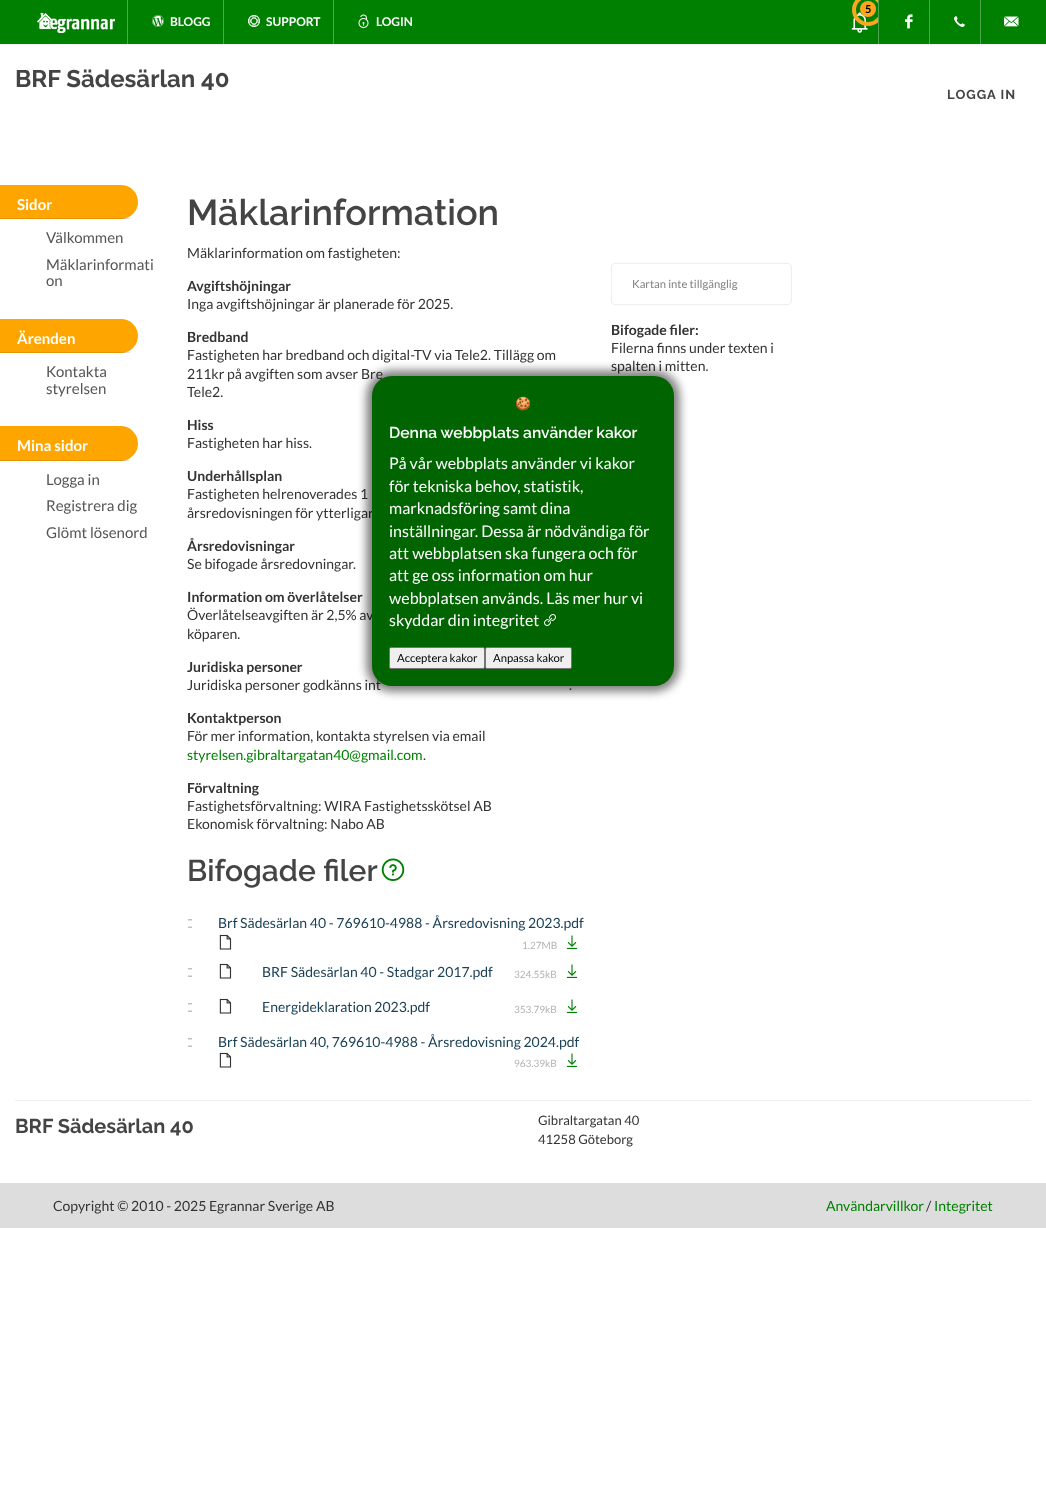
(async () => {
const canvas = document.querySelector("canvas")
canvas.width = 1046
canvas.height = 1504
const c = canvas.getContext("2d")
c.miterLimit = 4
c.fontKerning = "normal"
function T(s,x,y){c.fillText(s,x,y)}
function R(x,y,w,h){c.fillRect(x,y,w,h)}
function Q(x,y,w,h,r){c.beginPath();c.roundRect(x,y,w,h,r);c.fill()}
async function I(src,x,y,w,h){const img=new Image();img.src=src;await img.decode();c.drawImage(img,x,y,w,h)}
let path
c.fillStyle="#fff"
R(0,0,1046,1504)
c.fillStyle="#008000"
R(0,0,1046,44)
c.fillStyle="#eee"
R(0,44,1046,1)
await I("1.png",851,12,17,21)
c.fillStyle="#ffa520"
c.beginPath()
c.arc(868,9,8,0,7)
c.fill()
c.font="bold 11px Lato"
c.fillStyle="#000"
T("5",865,13)
c.fillStyle="#4da64d"
R(878,0,1,44)
c.save()
c.beginPath()
c.rect(838,0,40,44)
c.clip()
c.beginPath()
c.arc(868,10,14,0,7)
c.strokeStyle="#ffa520"
c.lineWidth=4
c.stroke()
c.restore()
await I("2.png",905,14,8,15)
R(929,0,1,44)
await I("3.png",954,15,12,12)
R(980,0,1,44)
await I("4.png",1004,16,15,11)
await I("5.png",37,12,78,22)
R(127,0,1,44)
await I("6.png",152,15,12,12)
c.font="bold 12px Lato"
c.fillStyle="#fff"
T("BLOGG",170,26)
c.fillStyle="#4da64d"
R(223,0,1,44)
await I("7.png",248,15,12,12)
c.fillStyle="#fff"
T("SUPPORT",266,26)
c.fillStyle="#4da64d"
R(333,0,1,44)
await I("8.png",358,14,11,14)
c.fillStyle="#fff"
T("LOGIN",376,26)
c.font="bold 24px Raleway"
c.fillStyle="#444"
T("BRF Sädesärlan 40",15,87)
c.letterSpacing="1px"
c.font="bold 13px Raleway"
T("LOGGA IN",947,99)
c.fillStyle="#ffa500"
c.beginPath()
c.roundRect(0,185,138,34,[0,17,17,0])
c.fill()
c.fillStyle="#0000001a"
R(0,218,130,1)
c.letterSpacing="0px"
c.font="bold 15px Lato"
c.fillStyle="#fff"
T("Sidor",17,210)
c.font="15px Lato"
c.fillStyle="#555"
T("Välkommen",46,243)
T("Mäklarinformati",46,270)
T("on",46,286)
c.fillStyle="#ffa500"
c.beginPath()
c.roundRect(0,319,138,34,[0,17,17,0])
c.fill()
c.fillStyle="#0000001a"
R(0,352,130,1)
c.font="bold 15px Lato"
c.fillStyle="#fff"
T("Ärenden",17,344)
c.font="15px Lato"
c.fillStyle="#555"
T("Kontakta",46,377)
T("styrelsen",46,394)
c.fillStyle="#ffa500"
c.beginPath()
c.roundRect(0,426,138,35,[0,17.5,17.5,0])
c.fill()
c.fillStyle="#0000001a"
R(0,460,129,1)
c.font="bold 15px Lato"
c.fillStyle="#fff"
T("Mina sidor",17,451)
c.font="15px Lato"
c.fillStyle="#555"
T("Logga in",46,485)
T("Registrera dig",46,511)
T("Glömt lösenord",46,538)
c.font="600 36px Raleway"
c.fillStyle="#444"
T("Mäklarinformation",187,225)
c.font="14px Lato"
c.fillStyle="#333"
T("Mäklarinformation om fastigheten:",187,258)
c.font="bold 14px Lato"
T("Avgiftshöjningar",187,291)
c.font="14px Lato"
T("Inga avgiftshöjningar är planerade för 2025.",187,309)
c.font="bold 14px Lato"
T("Bredband",187,342)
c.font="14px Lato"
T("Fastigheten har bredband och digital-TV via Tele2. Tillägg om",187,360)
T("211kr på avgiften som avser Bre",187,379)
T("Tele2.",187,397)
c.font="bold 14px Lato"
T("Hiss",187,430)
c.font="14px Lato"
T("Fastigheten har hiss.",187,448)
c.font="bold 14px Lato"
T("Underhållsplan",187,481)
c.font="14px Lato"
T("Fastigheten helrenoverades 1",187,499)
T("årsredovisningen för ytterligar",187,518)
c.font="bold 14px Lato"
T("Årsredovisningar",187,551)
c.font="14px Lato"
T("Se bifogade årsredovningar.",187,569)
c.font="bold 14px Lato"
T("Information om överlåtelser",187,602)
c.font="14px Lato"
T("Överlåtelseavgiften är 2,5% av",187,620)
T("köparen.",187,639)
c.font="bold 14px Lato"
T("Juridiska personer",187,672)
c.font="14px Lato"
T("Juridiska personer godkänns int",187,690)
T(".",569,690)
c.font="bold 14px Lato"
T("Kontaktperson",187,723)
c.font="14px Lato"
T("För mer information, kontakta styrelsen via email",187,741)
c.fillStyle="#008000"
T("styrelsen.gibraltargatan40@gmail.com",187,760)
c.fillStyle="#333"
T(".",423,760)
c.font="bold 14px Lato"
T("Förvaltning",187,793)
c.font="14px Lato"
T("Fastighetsförvaltning: WIRA Fastighetsskötsel AB",187,811)
T("Ekonomisk förvaltning: Nabo AB",187,829)
c.font="600 30px Raleway"
c.fillStyle="#444"
T("Bifogade filer",187,881)
await I("9.png",381,858,24,23)
c.fillStyle="#c0c0c0"
R(188,913,4,21)
path = new Path2D("M191 913v6m0 1.5v6m0 1.5v6")
c.strokeStyle="#fff"
c.lineWidth=2
c.stroke(path)
c.fillStyle="#fff"
R(188,932,4,2)
path = new Path2D("M189 913v6m0 1.5v6m0 1.5v6")
c.stroke(path)
c.font="14px Lato"
c.fillStyle="#1c4257"
T("Brf Sädesärlan 40 - 769610-4988 - Årsredovisning 2023.pdf",218,928)
await I("10.png",219,934,13,16)
c.font="10px Lato"
c.fillStyle="#b3b3b3"
T("1.27MB",522,949)
await I("11.png",566,935,12,14)
c.fillStyle="#c0c0c0"
R(188,962,4,21)
path = new Path2D("M191 962v6m0 1.5v6m0 1.5v6")
c.stroke(path)
c.fillStyle="#fff"
R(188,981,4,2)
path = new Path2D("M189 962v6m0 1.5v6m0 1.5v6")
c.stroke(path)
await I("10.png",219,963,13,16)
c.font="14px Lato"
c.fillStyle="#1c4257"
T("BRF Sädesärlan 40 - Stadgar 2017.pdf",262,977)
c.font="10px Lato"
c.fillStyle="#b3b3b3"
T("324.55kB",514,978)
await I("11.png",566,964,12,14)
c.fillStyle="#c0c0c0"
R(188,997,4,21)
path = new Path2D("M191 997v6m0 1.5v6m0 1.5v6")
c.stroke(path)
c.fillStyle="#fff"
R(188,1016,4,2)
path = new Path2D("M189 997v6m0 1.5v6m0 1.5v6")
c.stroke(path)
await I("10.png",219,998,13,16)
c.font="14px Lato"
c.fillStyle="#1c4257"
T("Energideklaration 2023.pdf",262,1012)
c.font="10px Lato"
c.fillStyle="#b3b3b3"
T("353.79kB",514,1013)
await I("11.png",566,999,12,14)
c.fillStyle="#c0c0c0"
R(188,1032,4,21)
path = new Path2D("M191 1032v6m0 1.5v6m0 1.5v6")
c.stroke(path)
c.fillStyle="#fff"
R(188,1051,4,2)
path = new Path2D("M189 1032v6m0 1.5v6m0 1.5v6")
c.stroke(path)
c.font="14px Lato"
c.fillStyle="#1c4257"
T("Brf Sädesärlan 40, 769610-4988 - Årsredovisning 2024.pdf",218,1047)
await I("10.png",219,1052,13,16)
c.font="10px Lato"
c.fillStyle="#b3b3b3"
T("963.39kB",514,1067)
await I("11.png",566,1053,12,14)
c.beginPath()
c.roundRect(611.5,263.5,180,41,3.5)
c.strokeStyle="#eee"
c.lineWidth=1
c.stroke()
c.font="11.25px Lato"
c.fillStyle="#818182"
T("Kartan inte tillgänglig",632,288)
c.font="bold 14px Lato"
c.fillStyle="#333"
T("Bifogade filer:",611,335)
c.font="14px Lato"
T("Filerna finns under texten i",611,353)
T("spalten i mitten.",611,371)
c.fillStyle="#eee"
R(15,1100,1016,1)
c.font="bold 20px Raleway"
c.fillStyle="#444"
T("BRF Sädesärlan 40",15,1133)
c.font="13px Lato"
c.fillStyle="#333"
T("Gibraltargatan 40",538,1125)
T("41258 Göteborg",538,1144)
c.fillStyle="#ddd"
R(0,1183,1046,45)
c.font="14px Lato"
c.fillStyle="#333"
T("Copyright © 2010 - 2025 Egrannar Sverige AB",53,1211)
c.fillStyle="#008000"
T("Användarvillkor",826,1211)
c.fillStyle="#333"
T("/",926,1211)
c.fillStyle="#008000"
T("Integritet",934,1211)
c.fillStyle="#0000004d"
c.filter="blur(5px)"
c.beginPath()
c.roundRect(367,371,312,320,25)
c.fill()
c.filter="none"
c.filter="blur(5px)"
c.beginPath()
c.roundRect(367,371,312,320,25)
c.fill()
c.filter="none"
c.fillStyle="#006400"
Q(372,376,302,310,20)
c.font="bold 13px Noto Color Emoji"
c.fillStyle="#fff"
T("🍪",515,408)
c.font="600 15.7px Raleway"
T("Denna webbplats använder kakor",389,438)
c.font="16px Lato"
T("På vår webbplats använder vi kakor",389,469)
T("för tekniska behov, statistik,",389,492)
T("marknadsföring samt dina",389,514)
T("inställningar. Dessa är nödvändiga för",389,537)
T("att webbplatsen ska fungera och för",389,559)
T("att ge oss information om hur",389,581)
T("webbplatsen används. Läs mer hur vi",389,604)
T("skyddar din integritet",389,626)
await I("12.png",544,614,12,12)
c.fillStyle="#efefef"
c.beginPath()
c.roundRect(389.5,647.5,95,21,1.5)
c.fill()
c.strokeStyle="#767676"
c.stroke()
c.font="11.25px Lato"
c.fillStyle="#000"
T("Acceptera kakor",397,662)
c.fillStyle="#efefef"
c.beginPath()
c.roundRect(485.5,647.5,86,21,1.5)
c.fill()
c.stroke()
c.fillStyle="#000"
T("Anpassa kakor",493,662)
})()
